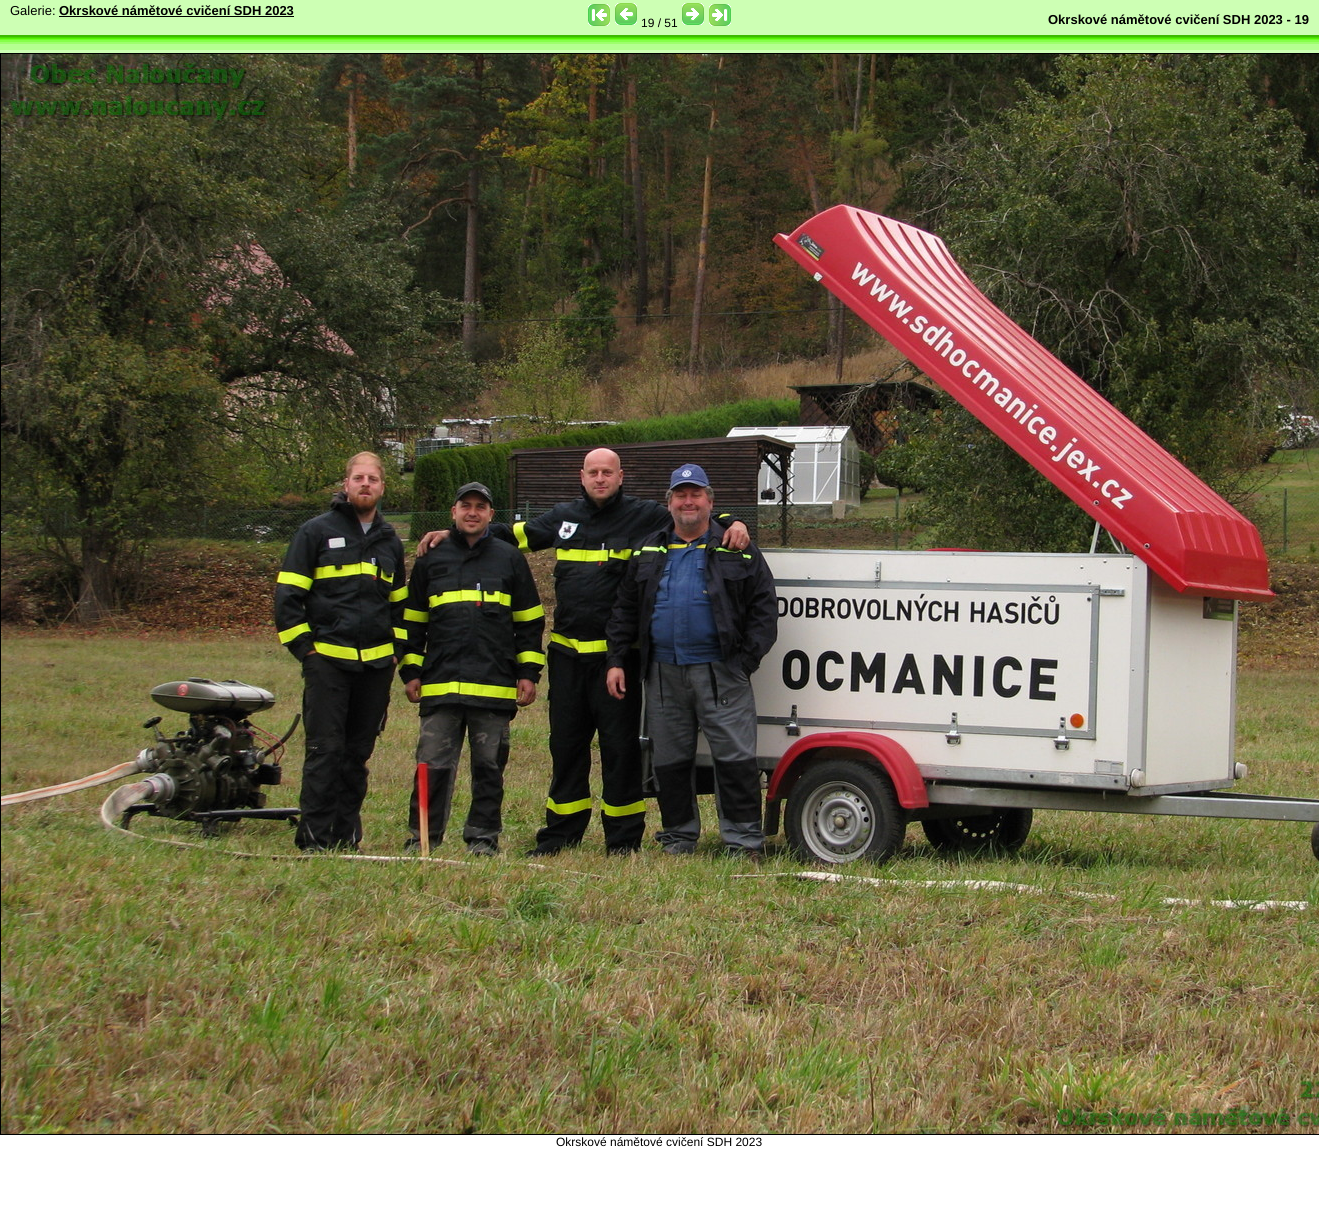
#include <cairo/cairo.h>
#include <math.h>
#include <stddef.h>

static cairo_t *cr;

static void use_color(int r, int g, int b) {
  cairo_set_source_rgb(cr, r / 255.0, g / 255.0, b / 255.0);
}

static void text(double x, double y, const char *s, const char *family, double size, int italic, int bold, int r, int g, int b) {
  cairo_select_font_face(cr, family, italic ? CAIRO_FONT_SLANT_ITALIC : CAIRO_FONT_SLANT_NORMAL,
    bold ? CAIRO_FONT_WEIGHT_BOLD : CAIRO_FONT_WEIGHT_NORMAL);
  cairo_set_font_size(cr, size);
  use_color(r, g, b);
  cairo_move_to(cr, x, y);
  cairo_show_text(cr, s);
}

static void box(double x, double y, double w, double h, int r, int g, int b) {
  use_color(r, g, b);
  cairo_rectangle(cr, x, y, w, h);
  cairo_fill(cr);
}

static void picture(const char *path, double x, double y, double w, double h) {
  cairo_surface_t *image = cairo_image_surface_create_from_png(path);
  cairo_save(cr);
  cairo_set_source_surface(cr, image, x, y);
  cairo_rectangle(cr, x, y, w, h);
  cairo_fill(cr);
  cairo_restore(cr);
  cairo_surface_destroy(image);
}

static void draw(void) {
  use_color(255, 255, 255);
  cairo_paint(cr);
  picture("img_01.png", 0, 0, 1319, 53);
  box(59, 16, 235, 1, 0, 0, 0);
  picture("img_02.png", 588, 4, 22, 22);
  picture("img_03.png", 615, 3, 22, 22);
  picture("img_04.png", 682, 3, 22, 22);
  picture("img_05.png", 709, 4, 22, 22);
  cairo_rectangle(cr, 0.5, 53.5, 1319, 1081);
  cairo_set_line_width(cr, 1);
  cairo_stroke(cr);
  picture("img_06.png", 1, 54, 1318, 1080);
  text(10, 15, "Galerie:", "Liberation Sans", 13, 0, 0, 0, 0, 0);
  text(59, 15, "Okrskové námětové cvičení SDH 2023", "Liberation Sans", 13, 0, 1, 0, 0, 0);
  text(641, 27, "19 / 51", "Liberation Sans", 12, 0, 0, 0, 0, 0);
  text(1048, 24, "Okrskové námětové cvičení SDH 2023 - 19", "Liberation Sans", 13, 0, 1, 0, 0, 0);
  text(556, 1146, "Okrskové námětové cvičení SDH 2023", "Liberation Sans", 12, 0, 0, 0, 0, 0);
}

int main(void) {
  cairo_surface_t *surface = cairo_image_surface_create(CAIRO_FORMAT_RGB24, 1319, 1208);
  cr = cairo_create(surface);
  cairo_font_options_t *options = cairo_font_options_create();
  cairo_font_options_set_hint_metrics(options, CAIRO_HINT_METRICS_OFF);
  cairo_font_options_set_hint_style(options, CAIRO_HINT_STYLE_NONE);
  cairo_set_font_options(cr, options);
  cairo_set_miter_limit(cr, 4);
  draw();
  cairo_surface_write_to_png(surface, "out.png");
  cairo_font_options_destroy(options);
  cairo_destroy(cr);
  cairo_surface_destroy(surface);
  return 0;
}
